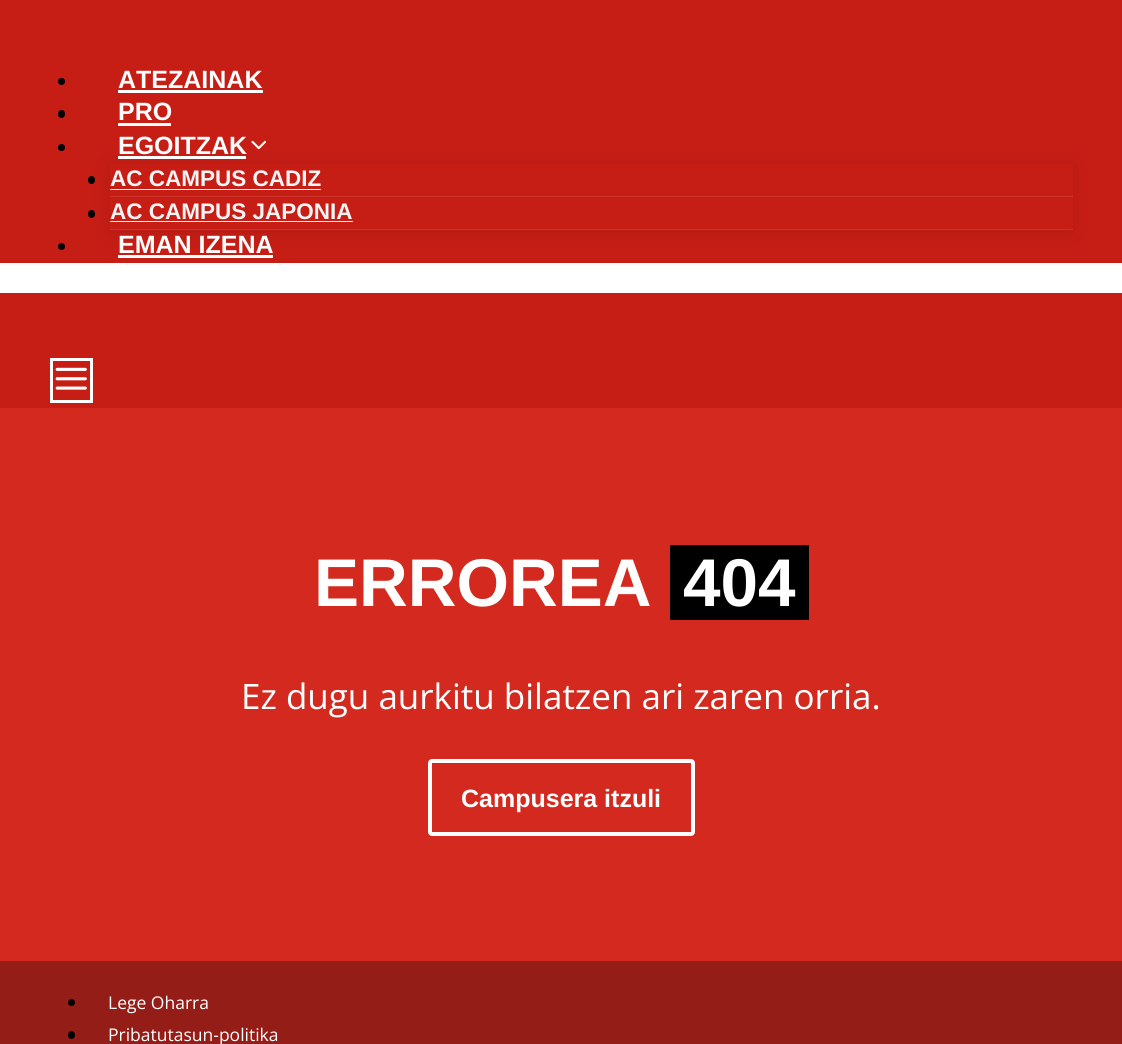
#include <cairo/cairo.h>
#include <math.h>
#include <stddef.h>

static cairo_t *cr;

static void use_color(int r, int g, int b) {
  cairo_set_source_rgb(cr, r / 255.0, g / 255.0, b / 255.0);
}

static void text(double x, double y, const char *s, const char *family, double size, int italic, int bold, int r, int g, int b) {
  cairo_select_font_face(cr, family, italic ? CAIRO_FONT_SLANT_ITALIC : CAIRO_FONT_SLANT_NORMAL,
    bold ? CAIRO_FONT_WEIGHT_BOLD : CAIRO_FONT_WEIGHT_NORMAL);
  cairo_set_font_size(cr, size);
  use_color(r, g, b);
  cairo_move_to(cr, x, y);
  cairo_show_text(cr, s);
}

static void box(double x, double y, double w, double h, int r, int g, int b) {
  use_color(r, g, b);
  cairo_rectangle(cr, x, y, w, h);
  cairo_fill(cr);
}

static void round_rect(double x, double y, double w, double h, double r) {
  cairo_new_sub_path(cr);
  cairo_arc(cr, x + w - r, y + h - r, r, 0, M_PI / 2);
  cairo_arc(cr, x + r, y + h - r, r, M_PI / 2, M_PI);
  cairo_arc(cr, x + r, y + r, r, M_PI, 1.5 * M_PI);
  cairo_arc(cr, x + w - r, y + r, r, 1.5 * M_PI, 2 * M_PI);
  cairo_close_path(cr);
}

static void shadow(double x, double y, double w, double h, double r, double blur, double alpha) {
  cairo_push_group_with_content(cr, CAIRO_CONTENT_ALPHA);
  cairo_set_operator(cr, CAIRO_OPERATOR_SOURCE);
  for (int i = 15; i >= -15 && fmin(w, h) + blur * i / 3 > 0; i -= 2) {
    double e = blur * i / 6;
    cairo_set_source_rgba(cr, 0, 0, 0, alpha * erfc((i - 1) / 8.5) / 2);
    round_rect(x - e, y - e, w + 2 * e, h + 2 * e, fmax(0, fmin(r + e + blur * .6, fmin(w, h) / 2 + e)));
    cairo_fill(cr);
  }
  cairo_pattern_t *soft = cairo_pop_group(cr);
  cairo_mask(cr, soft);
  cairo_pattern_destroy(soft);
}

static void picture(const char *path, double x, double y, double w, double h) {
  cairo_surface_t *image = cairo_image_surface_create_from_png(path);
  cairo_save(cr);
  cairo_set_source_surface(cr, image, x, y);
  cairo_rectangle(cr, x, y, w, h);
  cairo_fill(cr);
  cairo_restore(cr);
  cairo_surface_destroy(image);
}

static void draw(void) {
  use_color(255, 255, 255);
  cairo_paint(cr);
  box(0, 0, 1122, 263, 198, 29, 21);
  use_color(0, 0, 0);
  cairo_arc(cr, 61.5, 81.5, 3.5, 0, 2 * M_PI);
  cairo_fill(cr);
  box(118, 90, 145, 3, 255, 255, 255);
  use_color(0, 0, 0);
  round_rect(58, 110, 7, 8, 3.5);
  cairo_fill(cr);
  box(118, 123, 53, 3, 255, 255, 255);
  use_color(0, 0, 0);
  cairo_arc(cr, 61.5, 147.5, 3.5, 0, 2 * M_PI);
  cairo_fill(cr);
  use_color(0, 0, 0);
  shadow(110, 166, 963, 67, 0, 8, 0.1);
  box(118, 156, 128, 3, 255, 255, 255);
  picture("img_01.png", 251, 140, 15, 10);
  box(110, 164, 963, 65, 198, 29, 21);
  box(110, 196, 963, 1, 204, 52, 44);
  use_color(0, 0, 0);
  round_rect(88, 176, 7, 8, 3.5);
  cairo_fill(cr);
  box(110, 189, 211, 1, 245, 245, 245);
  box(110, 229, 963, 1, 204, 52, 44);
  use_color(0, 0, 0);
  round_rect(88, 210, 7, 8, 3.5);
  cairo_fill(cr);
  box(110, 221, 243, 1, 245, 245, 245);
  use_color(0, 0, 0);
  cairo_arc(cr, 61.5, 246.5, 3.5, 0, 2 * M_PI);
  cairo_fill(cr);
  box(118, 255, 155, 3, 255, 255, 255);
  box(0, 293, 1122, 115, 198, 29, 21);
  cairo_rectangle(cr, 51.5, 359.5, 40, 42);
  use_color(255, 255, 255);
  cairo_set_line_width(cr, 3);
  cairo_stroke(cr);
  picture("img_02.png", 55, 367, 32, 23);
  box(0, 408, 1122, 553, 211, 41, 30);
  box(670, 545, 139, 75, 0, 0, 0);
  round_rect(430, 761, 263, 73, 2);
  use_color(255, 255, 255);
  cairo_set_line_width(cr, 4);
  cairo_stroke(cr);
  box(0, 961, 1122, 83, 148, 29, 23);
  use_color(0, 0, 0);
  cairo_arc(cr, 71.5, 1002.5, 3.5, 0, 2 * M_PI);
  cairo_fill(cr);
  round_rect(68, 1031, 7, 8, 3.5);
  cairo_fill(cr);
  text(118, 88, "ATEZAINAK", "Liberation Sans", 25, 0, 1, 255, 255, 255);
  text(118, 120, "PRO", "Liberation Sans", 25, 0, 1, 255, 255, 255);
  text(118, 154, "EGOITZAK", "Liberation Sans", 25, 0, 1, 255, 255, 255);
  text(110, 186, "AC CAMPUS CADIZ", "Liberation Sans", 22.5, 0, 1, 245, 245, 245);
  text(110, 219, "AC CAMPUS JAPONIA", "Liberation Sans", 22.5, 0, 1, 245, 245, 245);
  text(118, 253, "EMAN IZENA", "Liberation Sans", 25, 0, 1, 255, 255, 255);
  text(314, 606, "ERROREA", "Liberation Sans", 67.5, 0, 1, 255, 255, 255);
  text(683, 606, "404", "Liberation Sans", 67.5, 0, 1, 255, 255, 255);
  text(241, 709, "Ez dugu aurkitu bilatzen ari zaren orria.", "Open Sans", 35, 0, 0, 255, 255, 255);
  text(461, 807, "Campusera itzuli", "Liberation Sans", 25, 0, 1, 255, 255, 255);
  text(108, 1009, "Lege Oharra", "Open Sans", 17.5, 0, 0, 255, 255, 255);
  text(108, 1041, "Pribatutasun-politika", "Open Sans", 17.5, 0, 0, 255, 255, 255);
}

int main(void) {
  cairo_surface_t *surface = cairo_image_surface_create(CAIRO_FORMAT_RGB24, 1122, 1044);
  cr = cairo_create(surface);
  cairo_font_options_t *options = cairo_font_options_create();
  cairo_font_options_set_hint_metrics(options, CAIRO_HINT_METRICS_OFF);
  cairo_font_options_set_hint_style(options, CAIRO_HINT_STYLE_NONE);
  cairo_set_font_options(cr, options);
  cairo_set_miter_limit(cr, 4);
  draw();
  cairo_surface_write_to_png(surface, "out.png");
  cairo_font_options_destroy(options);
  cairo_destroy(cr);
  cairo_surface_destroy(surface);
  return 0;
}
